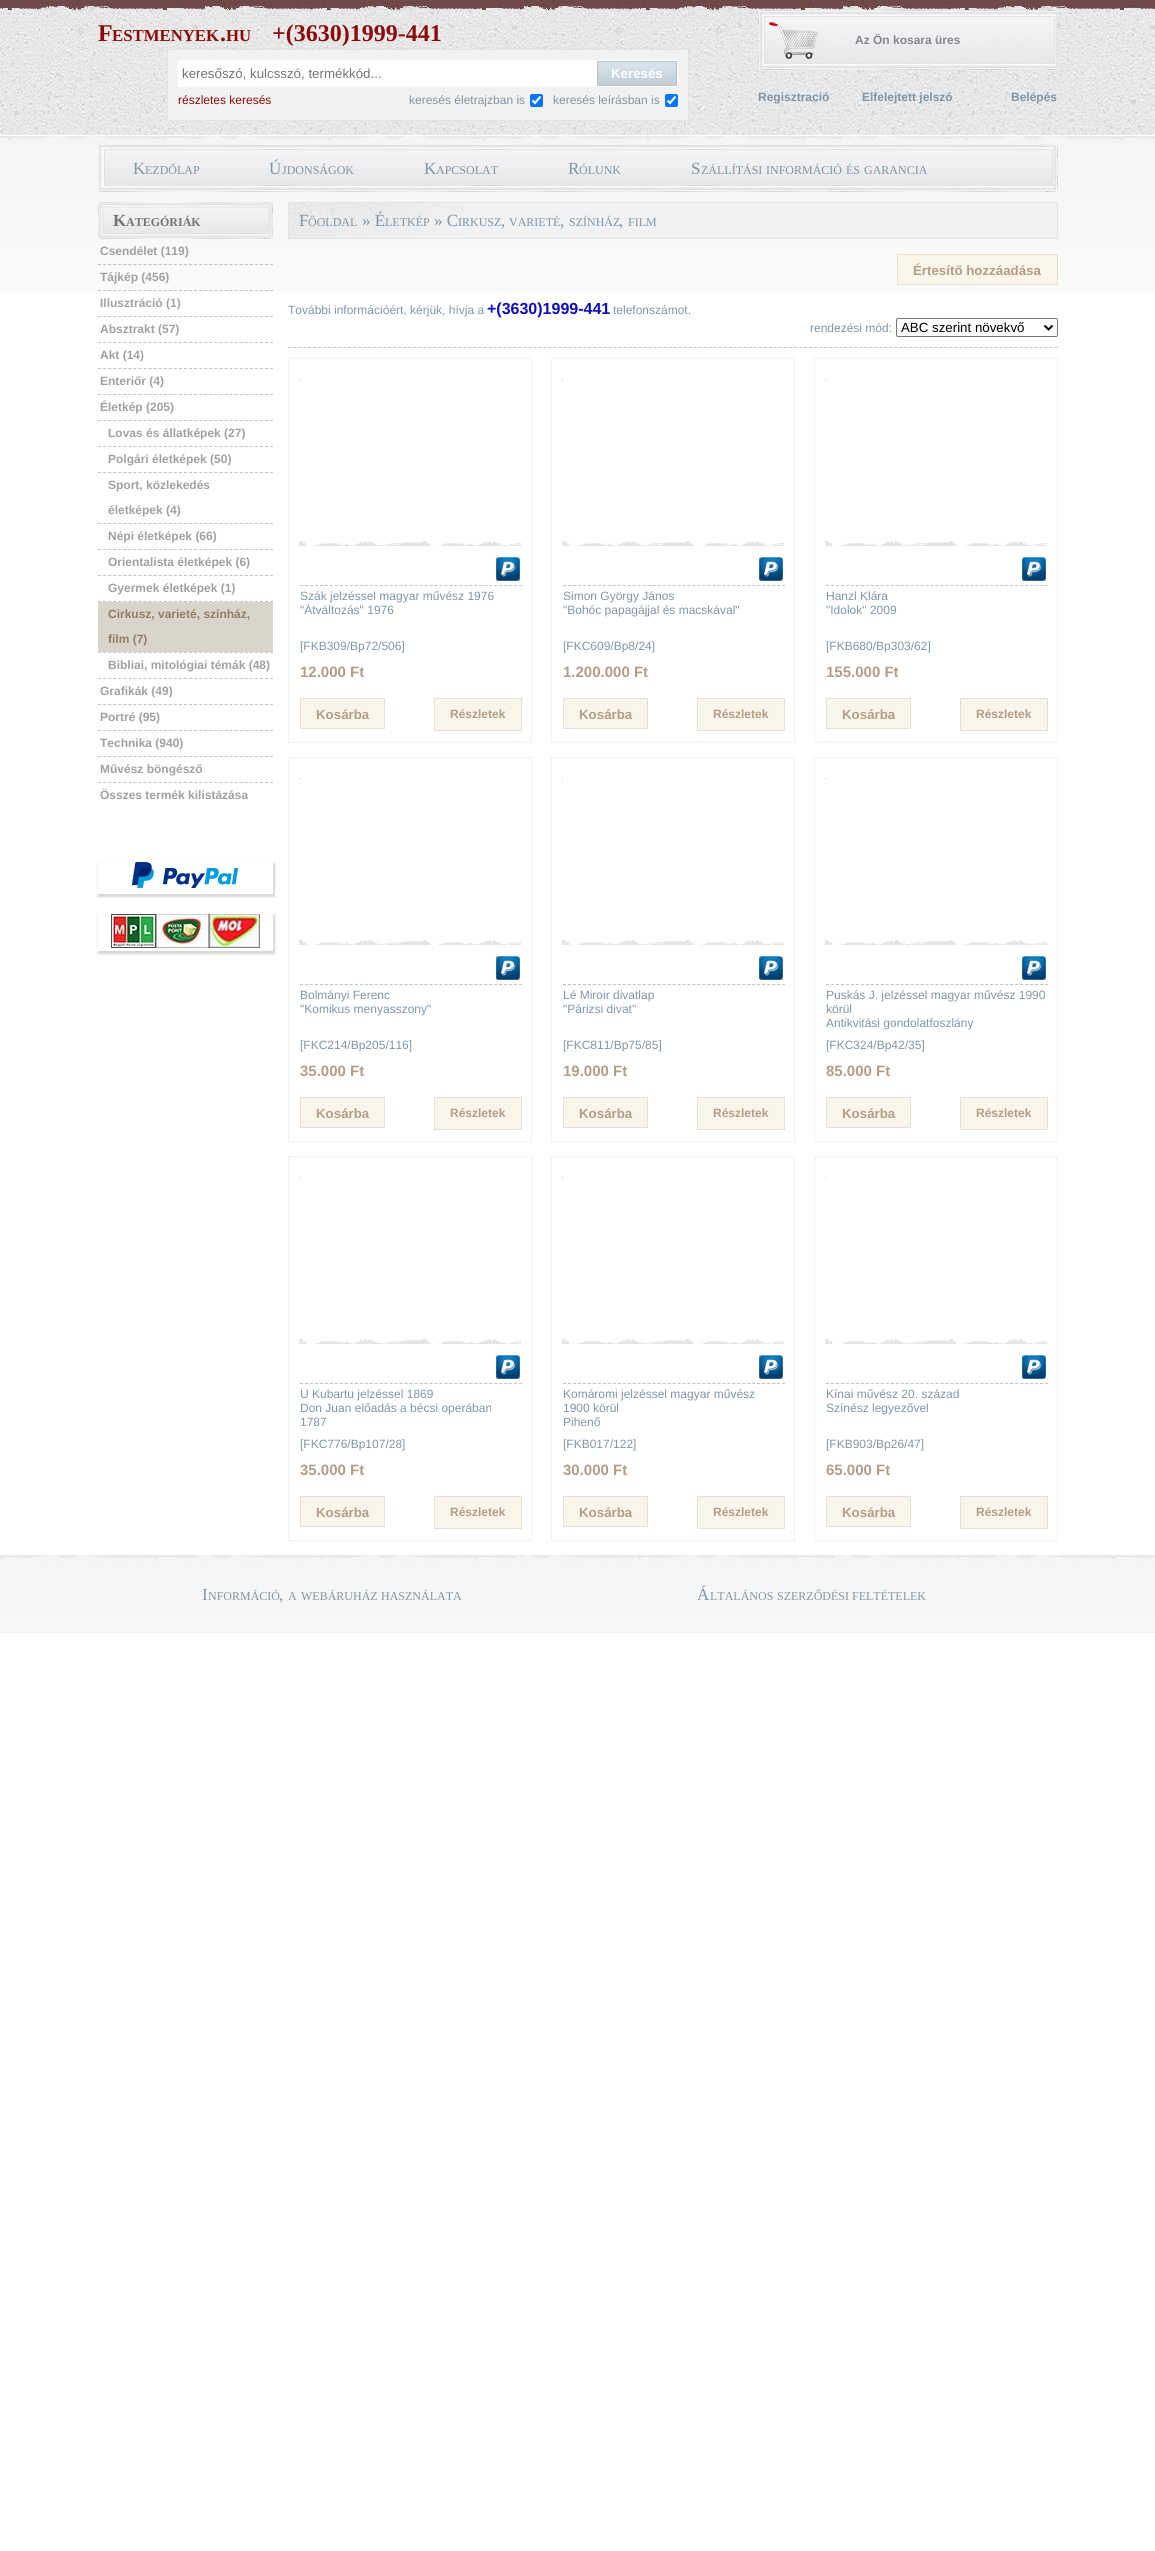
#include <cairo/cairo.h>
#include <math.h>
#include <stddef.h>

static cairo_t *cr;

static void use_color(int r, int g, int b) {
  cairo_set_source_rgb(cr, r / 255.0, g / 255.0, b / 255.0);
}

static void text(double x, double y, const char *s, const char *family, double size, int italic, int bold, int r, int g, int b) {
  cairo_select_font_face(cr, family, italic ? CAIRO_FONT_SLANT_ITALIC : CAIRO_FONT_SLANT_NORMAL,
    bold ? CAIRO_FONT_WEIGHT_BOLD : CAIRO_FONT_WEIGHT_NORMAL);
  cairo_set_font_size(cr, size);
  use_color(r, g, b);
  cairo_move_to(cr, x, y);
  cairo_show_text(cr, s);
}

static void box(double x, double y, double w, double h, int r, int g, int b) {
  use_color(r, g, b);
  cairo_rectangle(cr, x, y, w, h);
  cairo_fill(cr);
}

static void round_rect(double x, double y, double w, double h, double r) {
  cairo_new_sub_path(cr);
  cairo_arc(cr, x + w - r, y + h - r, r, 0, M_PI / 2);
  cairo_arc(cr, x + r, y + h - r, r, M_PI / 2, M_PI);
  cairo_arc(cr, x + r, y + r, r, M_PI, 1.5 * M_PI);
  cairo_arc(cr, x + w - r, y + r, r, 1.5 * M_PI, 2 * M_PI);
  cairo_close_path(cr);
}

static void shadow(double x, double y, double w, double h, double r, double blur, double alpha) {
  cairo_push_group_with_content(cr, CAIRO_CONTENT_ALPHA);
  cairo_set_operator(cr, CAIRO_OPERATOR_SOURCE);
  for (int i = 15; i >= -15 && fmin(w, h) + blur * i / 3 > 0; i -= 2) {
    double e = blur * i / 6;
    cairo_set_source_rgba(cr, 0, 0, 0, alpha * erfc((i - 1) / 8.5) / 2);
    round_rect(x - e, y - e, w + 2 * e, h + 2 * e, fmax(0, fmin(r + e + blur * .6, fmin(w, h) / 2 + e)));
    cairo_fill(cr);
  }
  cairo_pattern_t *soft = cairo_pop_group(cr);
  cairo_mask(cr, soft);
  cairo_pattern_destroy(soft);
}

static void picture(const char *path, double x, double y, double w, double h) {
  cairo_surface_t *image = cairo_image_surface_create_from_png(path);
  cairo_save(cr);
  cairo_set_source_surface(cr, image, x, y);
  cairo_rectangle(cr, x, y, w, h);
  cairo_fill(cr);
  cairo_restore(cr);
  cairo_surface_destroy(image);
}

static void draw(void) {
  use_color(255, 255, 255);
  cairo_paint(cr);
  picture("img_01.png", 0, 0, 1155, 292);
  use_color(242, 242, 242);
  cairo_rectangle(cr, 167.5, 49.5, 521, 71);
  cairo_fill_preserve(cr);
  use_color(227, 227, 227);
  cairo_set_line_width(cr, 1);
  cairo_stroke(cr);
  box(178, 60, 500, 27, 255, 255, 255);
  picture("img_02.png", 598, 62, 78, 23);
  cairo_rectangle(cr, 597.5, 61.5, 79, 24);
  use_color(189, 194, 201);
  cairo_stroke(cr);
  use_color(0, 117, 255);
  round_rect(530, 94, 13, 13, 2);
  cairo_fill(cr);
  cairo_new_path(cr);
  cairo_move_to(cr, 532.5, 100.5);
  cairo_line_to(cr, 535, 103);
  cairo_line_to(cr, 540.5, 96.5);
  use_color(255, 255, 255);
  cairo_set_line_width(cr, 2.1);
  cairo_stroke(cr);
  use_color(0, 117, 255);
  round_rect(665, 94, 13, 13, 2);
  cairo_fill(cr);
  cairo_new_path(cr);
  cairo_move_to(cr, 667.5, 100.5);
  cairo_line_to(cr, 670, 103);
  cairo_line_to(cr, 675.5, 96.5);
  use_color(255, 255, 255);
  cairo_stroke(cr);
  picture("img_03.png", 758, 10, 300, 60);
  picture("img_04.png", 769, 22, 49, 37);
  picture("img_05.png", 98, 144, 960, 48);
  picture("img_06.png", 98, 202, 175, 37);
  cairo_new_path(cr);
  cairo_move_to(cr, 98, 264.5);
  cairo_line_to(cr, 273, 264.5);
  use_color(194, 194, 194);
  cairo_set_line_width(cr, 1);
  cairo_set_dash(cr, (double[]){3, 2.06}, 2, 0);
  cairo_stroke(cr);
  cairo_new_path(cr);
  cairo_move_to(cr, 98, 290.5);
  cairo_line_to(cr, 273, 290.5);
  cairo_stroke(cr);
  cairo_new_path(cr);
  cairo_move_to(cr, 98, 316.5);
  cairo_line_to(cr, 273, 316.5);
  cairo_stroke(cr);
  cairo_new_path(cr);
  cairo_move_to(cr, 98, 342.5);
  cairo_line_to(cr, 273, 342.5);
  cairo_stroke(cr);
  cairo_new_path(cr);
  cairo_move_to(cr, 98, 368.5);
  cairo_line_to(cr, 273, 368.5);
  cairo_stroke(cr);
  cairo_new_path(cr);
  cairo_move_to(cr, 98, 394.5);
  cairo_line_to(cr, 273, 394.5);
  cairo_stroke(cr);
  cairo_new_path(cr);
  cairo_move_to(cr, 98, 420.5);
  cairo_line_to(cr, 273, 420.5);
  cairo_stroke(cr);
  cairo_new_path(cr);
  cairo_move_to(cr, 98, 446.5);
  cairo_line_to(cr, 273, 446.5);
  cairo_stroke(cr);
  cairo_new_path(cr);
  cairo_move_to(cr, 98, 472.5);
  cairo_line_to(cr, 273, 472.5);
  cairo_stroke(cr);
  cairo_new_path(cr);
  cairo_move_to(cr, 98, 523.5);
  cairo_line_to(cr, 273, 523.5);
  cairo_stroke(cr);
  cairo_new_path(cr);
  cairo_move_to(cr, 98, 549.5);
  cairo_line_to(cr, 273, 549.5);
  cairo_stroke(cr);
  cairo_new_path(cr);
  cairo_move_to(cr, 98, 575.5);
  cairo_line_to(cr, 273, 575.5);
  cairo_stroke(cr);
  cairo_new_path(cr);
  cairo_move_to(cr, 98, 601.5);
  cairo_line_to(cr, 273, 601.5);
  cairo_stroke(cr);
  box(98, 602, 175, 50, 218, 213, 203);
  cairo_new_path(cr);
  cairo_move_to(cr, 98, 652.5);
  cairo_line_to(cr, 273, 652.5);
  use_color(194, 194, 194);
  cairo_stroke(cr);
  cairo_new_path(cr);
  cairo_move_to(cr, 98, 678.5);
  cairo_line_to(cr, 273, 678.5);
  cairo_stroke(cr);
  cairo_new_path(cr);
  cairo_move_to(cr, 98, 704.5);
  cairo_line_to(cr, 273, 704.5);
  cairo_stroke(cr);
  cairo_new_path(cr);
  cairo_move_to(cr, 98, 730.5);
  cairo_line_to(cr, 273, 730.5);
  cairo_stroke(cr);
  cairo_new_path(cr);
  cairo_move_to(cr, 98, 756.5);
  cairo_line_to(cr, 273, 756.5);
  cairo_stroke(cr);
  cairo_new_path(cr);
  cairo_move_to(cr, 98, 782.5);
  cairo_line_to(cr, 273, 782.5);
  cairo_stroke(cr);
  cairo_save(cr);
  cairo_set_fill_rule(cr, CAIRO_FILL_RULE_EVEN_ODD);
  cairo_new_path(cr);
  cairo_move_to(cr, 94, 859);
  cairo_line_to(cr, 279, 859);
  cairo_line_to(cr, 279, 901);
  cairo_line_to(cr, 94, 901);
  cairo_close_path(cr);
  cairo_move_to(cr, 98, 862);
  cairo_line_to(cr, 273, 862);
  cairo_line_to(cr, 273, 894);
  cairo_line_to(cr, 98, 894);
  cairo_close_path(cr);
  cairo_clip(cr);
  use_color(175, 175, 175);
  shadow(98, 863, 177, 34, 0, 1, 0.5);
  cairo_restore(cr);
  picture("img_07.png", 132, 862, 106, 26);
  cairo_save(cr);
  cairo_set_fill_rule(cr, CAIRO_FILL_RULE_EVEN_ODD);
  cairo_new_path(cr);
  cairo_move_to(cr, 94, 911);
  cairo_line_to(cr, 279, 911);
  cairo_line_to(cr, 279, 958);
  cairo_line_to(cr, 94, 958);
  cairo_close_path(cr);
  cairo_move_to(cr, 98, 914);
  cairo_line_to(cr, 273, 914);
  cairo_line_to(cr, 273, 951);
  cairo_line_to(cr, 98, 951);
  cairo_close_path(cr);
  cairo_clip(cr);
  use_color(175, 175, 175);
  shadow(98, 915, 177, 39, 0, 1, 0.5);
  cairo_restore(cr);
  picture("img_08.png", 111, 914, 45, 34);
  picture("img_09.png", 156, 914, 53, 34);
  picture("img_10.png", 209, 914, 51, 34);
  box(289, 203, 768, 35, 242, 242, 242);
  picture("img_11.png", 289, 203, 175, 35);
  cairo_rectangle(cr, 288.5, 202.5, 769, 36);
  use_color(227, 227, 227);
  cairo_set_dash(cr, NULL, 0, 0);
  cairo_stroke(cr);
  use_color(250, 245, 235);
  cairo_rectangle(cr, 897.5, 254.5, 160, 30);
  cairo_fill_preserve(cr);
  use_color(233, 224, 212);
  cairo_stroke(cr);
  cairo_new_path(cr);
  cairo_move_to(cr, 288, 347.5);
  cairo_line_to(cr, 1058, 347.5);
  use_color(194, 194, 194);
  cairo_set_dash(cr, (double[]){3, 2.01}, 2, 0);
  cairo_stroke(cr);
  round_rect(896.5, 318.5, 161, 18, 1.5);
  use_color(118, 118, 118);
  cairo_set_dash(cr, NULL, 0, 0);
  cairo_stroke(cr);
  cairo_new_path(cr);
  cairo_move_to(cr, 1044.5, 325.5);
  cairo_line_to(cr, 1048.5, 329.5);
  cairo_line_to(cr, 1052.5, 325.5);
  use_color(0, 0, 0);
  cairo_set_line_width(cr, 2);
  cairo_stroke(cr);
  cairo_rectangle(cr, 288.5, 358.5, 243, 384);
  use_color(242, 242, 242);
  cairo_set_line_width(cr, 1);
  cairo_stroke(cr);
  picture("img_12.png", 299, 541, 222, 5);
  box(299, 379, 1, 1, 195, 195, 195);
  cairo_new_path(cr);
  cairo_move_to(cr, 300, 585.5);
  cairo_line_to(cr, 522, 585.5);
  use_color(194, 194, 194);
  cairo_set_dash(cr, (double[]){3, 1.98}, 2, 0);
  cairo_stroke(cr);
  picture("img_13.png", 496, 557, 24, 24);
  use_color(250, 245, 235);
  cairo_rectangle(cr, 300.5, 698.5, 84, 30);
  cairo_fill_preserve(cr);
  use_color(233, 224, 212);
  cairo_set_dash(cr, NULL, 0, 0);
  cairo_stroke(cr);
  use_color(250, 245, 235);
  cairo_rectangle(cr, 434.5, 698.5, 87, 32);
  cairo_fill_preserve(cr);
  use_color(233, 224, 212);
  cairo_stroke(cr);
  cairo_rectangle(cr, 551.5, 358.5, 243, 384);
  use_color(242, 242, 242);
  cairo_stroke(cr);
  picture("img_12.png", 562, 541, 222, 5);
  box(562, 379, 1, 1, 195, 195, 195);
  cairo_new_path(cr);
  cairo_move_to(cr, 563, 585.5);
  cairo_line_to(cr, 785, 585.5);
  use_color(194, 194, 194);
  cairo_set_dash(cr, (double[]){3, 1.98}, 2, 0);
  cairo_stroke(cr);
  picture("img_13.png", 759, 557, 24, 24);
  use_color(250, 245, 235);
  cairo_rectangle(cr, 563.5, 698.5, 84, 30);
  cairo_fill_preserve(cr);
  use_color(233, 224, 212);
  cairo_set_dash(cr, NULL, 0, 0);
  cairo_stroke(cr);
  use_color(250, 245, 235);
  cairo_rectangle(cr, 697.5, 698.5, 87, 32);
  cairo_fill_preserve(cr);
  use_color(233, 224, 212);
  cairo_stroke(cr);
  cairo_rectangle(cr, 814.5, 358.5, 243, 384);
  use_color(242, 242, 242);
  cairo_stroke(cr);
  picture("img_12.png", 825, 541, 222, 5);
  box(825, 379, 1, 1, 195, 195, 195);
  cairo_new_path(cr);
  cairo_move_to(cr, 826, 585.5);
  cairo_line_to(cr, 1048, 585.5);
  use_color(194, 194, 194);
  cairo_set_dash(cr, (double[]){3, 1.98}, 2, 0);
  cairo_stroke(cr);
  picture("img_13.png", 1022, 557, 24, 24);
  use_color(250, 245, 235);
  cairo_rectangle(cr, 826.5, 698.5, 84, 30);
  cairo_fill_preserve(cr);
  use_color(233, 224, 212);
  cairo_set_dash(cr, NULL, 0, 0);
  cairo_stroke(cr);
  use_color(250, 245, 235);
  cairo_rectangle(cr, 960.5, 698.5, 87, 32);
  cairo_fill_preserve(cr);
  use_color(233, 224, 212);
  cairo_stroke(cr);
  cairo_rectangle(cr, 288.5, 757.5, 243, 384);
  use_color(242, 242, 242);
  cairo_stroke(cr);
  picture("img_12.png", 299, 940, 222, 5);
  box(299, 778, 1, 1, 195, 195, 195);
  cairo_new_path(cr);
  cairo_move_to(cr, 300, 984.5);
  cairo_line_to(cr, 522, 984.5);
  use_color(194, 194, 194);
  cairo_set_dash(cr, (double[]){3, 1.98}, 2, 0);
  cairo_stroke(cr);
  picture("img_13.png", 496, 956, 24, 24);
  use_color(250, 245, 235);
  cairo_rectangle(cr, 300.5, 1097.5, 84, 30);
  cairo_fill_preserve(cr);
  use_color(233, 224, 212);
  cairo_set_dash(cr, NULL, 0, 0);
  cairo_stroke(cr);
  use_color(250, 245, 235);
  cairo_rectangle(cr, 434.5, 1097.5, 87, 32);
  cairo_fill_preserve(cr);
  use_color(233, 224, 212);
  cairo_stroke(cr);
  cairo_rectangle(cr, 551.5, 757.5, 243, 384);
  use_color(242, 242, 242);
  cairo_stroke(cr);
  picture("img_12.png", 562, 940, 222, 5);
  box(562, 778, 1, 1, 195, 195, 195);
  cairo_new_path(cr);
  cairo_move_to(cr, 563, 984.5);
  cairo_line_to(cr, 785, 984.5);
  use_color(194, 194, 194);
  cairo_set_dash(cr, (double[]){3, 1.98}, 2, 0);
  cairo_stroke(cr);
  picture("img_13.png", 759, 956, 24, 24);
  use_color(250, 245, 235);
  cairo_rectangle(cr, 563.5, 1097.5, 84, 30);
  cairo_fill_preserve(cr);
  use_color(233, 224, 212);
  cairo_set_dash(cr, NULL, 0, 0);
  cairo_stroke(cr);
  use_color(250, 245, 235);
  cairo_rectangle(cr, 697.5, 1097.5, 87, 32);
  cairo_fill_preserve(cr);
  use_color(233, 224, 212);
  cairo_stroke(cr);
  cairo_rectangle(cr, 814.5, 757.5, 243, 384);
  use_color(242, 242, 242);
  cairo_stroke(cr);
  picture("img_12.png", 825, 940, 222, 5);
  box(825, 778, 1, 1, 195, 195, 195);
  cairo_new_path(cr);
  cairo_move_to(cr, 826, 984.5);
  cairo_line_to(cr, 1048, 984.5);
  use_color(194, 194, 194);
  cairo_set_dash(cr, (double[]){3, 1.98}, 2, 0);
  cairo_stroke(cr);
  picture("img_13.png", 1022, 956, 24, 24);
  use_color(250, 245, 235);
  cairo_rectangle(cr, 826.5, 1097.5, 84, 30);
  cairo_fill_preserve(cr);
  use_color(233, 224, 212);
  cairo_set_dash(cr, NULL, 0, 0);
  cairo_stroke(cr);
  use_color(250, 245, 235);
  cairo_rectangle(cr, 960.5, 1097.5, 87, 32);
  cairo_fill_preserve(cr);
  use_color(233, 224, 212);
  cairo_stroke(cr);
  cairo_rectangle(cr, 288.5, 1156.5, 243, 384);
  use_color(242, 242, 242);
  cairo_stroke(cr);
  picture("img_12.png", 299, 1339, 222, 5);
  box(299, 1177, 1, 1, 195, 195, 195);
  cairo_new_path(cr);
  cairo_move_to(cr, 300, 1383.5);
  cairo_line_to(cr, 522, 1383.5);
  use_color(194, 194, 194);
  cairo_set_dash(cr, (double[]){3, 1.98}, 2, 0);
  cairo_stroke(cr);
  picture("img_13.png", 496, 1355, 24, 24);
  use_color(250, 245, 235);
  cairo_rectangle(cr, 300.5, 1496.5, 84, 30);
  cairo_fill_preserve(cr);
  use_color(233, 224, 212);
  cairo_set_dash(cr, NULL, 0, 0);
  cairo_stroke(cr);
  use_color(250, 245, 235);
  cairo_rectangle(cr, 434.5, 1496.5, 87, 32);
  cairo_fill_preserve(cr);
  use_color(233, 224, 212);
  cairo_stroke(cr);
  cairo_rectangle(cr, 551.5, 1156.5, 243, 384);
  use_color(242, 242, 242);
  cairo_stroke(cr);
  picture("img_12.png", 562, 1339, 222, 5);
  box(562, 1177, 1, 1, 195, 195, 195);
  cairo_new_path(cr);
  cairo_move_to(cr, 563, 1383.5);
  cairo_line_to(cr, 785, 1383.5);
  use_color(194, 194, 194);
  cairo_set_dash(cr, (double[]){3, 1.98}, 2, 0);
  cairo_stroke(cr);
  picture("img_13.png", 759, 1355, 24, 24);
  use_color(250, 245, 235);
  cairo_rectangle(cr, 563.5, 1496.5, 84, 30);
  cairo_fill_preserve(cr);
  use_color(233, 224, 212);
  cairo_set_dash(cr, NULL, 0, 0);
  cairo_stroke(cr);
  use_color(250, 245, 235);
  cairo_rectangle(cr, 697.5, 1496.5, 87, 32);
  cairo_fill_preserve(cr);
  use_color(233, 224, 212);
  cairo_stroke(cr);
  cairo_rectangle(cr, 814.5, 1156.5, 243, 384);
  use_color(242, 242, 242);
  cairo_stroke(cr);
  picture("img_12.png", 825, 1339, 222, 5);
  box(825, 1177, 1, 1, 195, 195, 195);
  cairo_new_path(cr);
  cairo_move_to(cr, 826, 1383.5);
  cairo_line_to(cr, 1048, 1383.5);
  use_color(194, 194, 194);
  cairo_set_dash(cr, (double[]){3, 1.98}, 2, 0);
  cairo_stroke(cr);
  picture("img_13.png", 1022, 1355, 24, 24);
  use_color(250, 245, 235);
  cairo_rectangle(cr, 826.5, 1496.5, 84, 30);
  cairo_fill_preserve(cr);
  use_color(233, 224, 212);
  cairo_set_dash(cr, NULL, 0, 0);
  cairo_stroke(cr);
  use_color(250, 245, 235);
  cairo_rectangle(cr, 960.5, 1496.5, 87, 32);
  cairo_fill_preserve(cr);
  use_color(233, 224, 212);
  cairo_stroke(cr);
  picture("img_14.png", 0, 1555, 1155, 79);
  text(98, 41, "F", "Liberation Serif", 24, 0, 1, 138, 11, 10);
  text(112, 41, "ESTMENYEK", "Liberation Serif", 16.75, 0, 1, 138, 11, 10);
  text(220, 41, ".", "Liberation Serif", 24, 0, 1, 138, 11, 10);
  text(226, 41, "HU", "Liberation Serif", 16.75, 0, 1, 138, 11, 10);
  text(272, 41, "+(3630)1999-441", "Liberation Serif", 24, 0, 1, 138, 11, 10);
  text(182, 78, "keresőszó, kulcsszó, termékkód...", "Liberation Sans", 13.3, 0, 0, 117, 117, 117);
  text(611, 78, "Keresés", "Liberation Sans", 13.3, 0, 1, 255, 255, 255);
  text(178, 104, "részletes keresés", "Liberation Sans", 12, 0, 0, 138, 11, 10);
  text(409, 104, "keresés életrajzban is", "Liberation Sans", 12, 0, 0, 127, 150, 169);
  text(553, 104, "keresés leírásban is", "Liberation Sans", 12, 0, 0, 127, 150, 169);
  text(855, 44, "Az Ön kosara üres", "Liberation Sans", 12, 0, 1, 136, 134, 143);
  text(758, 101, "Regisztració", "Liberation Sans", 12, 0, 1, 127, 150, 169);
  text(862, 101, "Elfelejtett jelszó", "Liberation Sans", 12, 0, 1, 127, 150, 169);
  text(1011, 101, "Belépés", "Liberation Sans", 12, 0, 1, 127, 150, 169);
  text(133, 174, "K", "Liberation Serif", 17, 0, 0, 127, 150, 169);
  text(145, 174, "EZDŐLAP", "Liberation Serif", 12, 0, 0, 127, 150, 169);
  text(269, 174, "Ú", "Liberation Serif", 17, 0, 0, 127, 150, 169);
  text(282, 174, "JDONSÁGOK", "Liberation Serif", 12, 0, 0, 127, 150, 169);
  text(424, 174, "K", "Liberation Serif", 17, 0, 0, 127, 150, 169);
  text(436, 174, "APCSOLAT", "Liberation Serif", 12, 0, 0, 127, 150, 169);
  text(568, 174, "R", "Liberation Serif", 17, 0, 0, 127, 150, 169);
  text(579, 174, "ÓLUNK", "Liberation Serif", 12, 0, 0, 127, 150, 169);
  text(691, 174, "S", "Liberation Serif", 17, 0, 0, 127, 150, 169);
  text(701, 174, "ZÁLLÍTÁSI", "Liberation Serif", 12, 0, 0, 127, 150, 169);
  text(766, 174, "INFORMÁCIÓ", "Liberation Serif", 12, 0, 0, 127, 150, 169);
  text(846, 174, "ÉS", "Liberation Serif", 12, 0, 0, 127, 150, 169);
  text(864, 174, "GARANCIA", "Liberation Serif", 12, 0, 0, 127, 150, 169);
  text(113, 226, "K", "Liberation Serif", 17, 0, 1, 117, 117, 117);
  text(126, 226, "ATEGÓRIÁK", "Liberation Serif", 12, 0, 1, 117, 117, 117);
  text(100, 255, "Csendélet (119)", "Liberation Sans", 12, 0, 1, 159, 161, 164);
  text(100, 281, "Tájkép (456)", "Liberation Sans", 12, 0, 1, 159, 161, 164);
  text(100, 307, "Illusztráció (1)", "Liberation Sans", 12, 0, 1, 159, 161, 164);
  text(100, 333, "Absztrakt (57)", "Liberation Sans", 12, 0, 1, 159, 161, 164);
  text(100, 359, "Akt (14)", "Liberation Sans", 12, 0, 1, 159, 161, 164);
  text(100, 385, "Enteriőr (4)", "Liberation Sans", 12, 0, 1, 159, 161, 164);
  text(100, 411, "Életkép (205)", "Liberation Sans", 12, 0, 1, 159, 161, 164);
  text(108, 437, "Lovas és állatképek (27)", "Liberation Sans", 12, 0, 1, 159, 161, 164);
  text(108, 463, "Polgári életképek (50)", "Liberation Sans", 12, 0, 1, 159, 161, 164);
  text(108, 489, "Sport, közlekedés", "Liberation Sans", 12, 0, 1, 159, 161, 164);
  text(108, 514, "életképek (4)", "Liberation Sans", 12, 0, 1, 159, 161, 164);
  text(108, 540, "Népi életképek (66)", "Liberation Sans", 12, 0, 1, 159, 161, 164);
  text(108, 566, "Orientalista életképek (6)", "Liberation Sans", 12, 0, 1, 159, 161, 164);
  text(108, 592, "Gyermek életképek (1)", "Liberation Sans", 12, 0, 1, 159, 161, 164);
  text(108, 618, "Cirkusz, varieté, színház,", "Liberation Sans", 12, 0, 1, 148, 125, 103);
  text(108, 643, "film (7)", "Liberation Sans", 12, 0, 1, 148, 125, 103);
  text(108, 669, "Bibliai, mitológiai témák (48)", "Liberation Sans", 12, 0, 1, 159, 161, 164);
  text(100, 695, "Grafikák (49)", "Liberation Sans", 12, 0, 1, 159, 161, 164);
  text(100, 721, "Portré (95)", "Liberation Sans", 12, 0, 1, 159, 161, 164);
  text(100, 747, "Technika (940)", "Liberation Sans", 12, 0, 1, 159, 161, 164);
  text(100, 773, "Művész böngésző", "Liberation Sans", 12, 0, 1, 159, 161, 164);
  text(100, 799, "Összes termék kilistázása", "Liberation Sans", 12, 0, 1, 159, 161, 164);
  text(299, 226, "F", "Liberation Serif", 17, 0, 0, 127, 150, 169);
  text(308, 226, "ŐOLDAL", "Liberation Serif", 12, 0, 0, 127, 150, 169);
  text(362, 226, "» É", "Liberation Serif", 17, 0, 0, 127, 150, 169);
  text(385, 226, "LETKÉP", "Liberation Serif", 12, 0, 0, 127, 150, 169);
  text(434, 226, "» C", "Liberation Serif", 17, 0, 0, 127, 150, 169);
  text(458, 226, "IRKUSZ", "Liberation Serif", 12, 0, 0, 127, 150, 169);
  text(509, 226, "VARIETÉ", "Liberation Serif", 12, 0, 0, 127, 150, 169);
  text(569, 226, "SZÍNHÁZ", "Liberation Serif", 12, 0, 0, 127, 150, 169);
  text(628, 226, "FILM", "Liberation Serif", 12, 0, 0, 127, 150, 169);
  text(501, 226, ",", "Liberation Serif", 17, 0, 0, 127, 150, 169);
  text(560, 226, ",", "Liberation Serif", 17, 0, 0, 127, 150, 169);
  text(619, 226, ",", "Liberation Serif", 17, 0, 0, 127, 150, 169);
  text(913, 275, "Értesítő hozzáadása", "Liberation Sans", 13.3, 0, 1, 180, 157, 135);
  text(288, 314, "További információért, kérjük, hívja a", "Liberation Sans", 12, 0, 0, 127, 150, 169);
  text(487, 314, "+(3630)1999-441", "Liberation Sans", 16, 0, 1, 13, 13, 190);
  text(613, 314, "telefonszámot.", "Liberation Sans", 12, 0, 0, 127, 150, 169);
  text(810, 332, "rendezési mód:", "Liberation Sans", 12, 0, 0, 127, 150, 169);
  text(901, 332, "ABC szerint növekvő", "Liberation Sans", 13.3, 0, 0, 0, 0, 0);
  text(300, 600, "Szák jelzéssel magyar művész 1976", "Liberation Sans", 12, 0, 0, 127, 150, 169);
  text(300, 614, "\"Átváltozás\" 1976", "Liberation Sans", 12, 0, 0, 127, 150, 169);
  text(300, 650, "[FKB309/Bp72/506]", "Liberation Sans", 12, 0, 0, 127, 150, 169);
  text(300, 677, "12.000 Ft", "Liberation Sans", 15, 0, 1, 180, 157, 135);
  text(316, 719, "Kosárba", "Liberation Sans", 13.3, 0, 1, 180, 157, 135);
  text(450, 718, "Részletek", "Liberation Sans", 12, 0, 1, 180, 157, 135);
  text(563, 600, "Simon György János", "Liberation Sans", 12, 0, 0, 127, 150, 169);
  text(563, 614, "\"Bohóc papagájjal és macskával\"", "Liberation Sans", 12, 0, 0, 127, 150, 169);
  text(563, 650, "[FKC609/Bp8/24]", "Liberation Sans", 12, 0, 0, 127, 150, 169);
  text(563, 677, "1.200.000 Ft", "Liberation Sans", 15, 0, 1, 180, 157, 135);
  text(579, 719, "Kosárba", "Liberation Sans", 13.3, 0, 1, 180, 157, 135);
  text(713, 718, "Részletek", "Liberation Sans", 12, 0, 1, 180, 157, 135);
  text(826, 600, "Hanzl Klára", "Liberation Sans", 12, 0, 0, 127, 150, 169);
  text(826, 614, "\"Idolok\" 2009", "Liberation Sans", 12, 0, 0, 127, 150, 169);
  text(826, 650, "[FKB680/Bp303/62]", "Liberation Sans", 12, 0, 0, 127, 150, 169);
  text(826, 677, "155.000 Ft", "Liberation Sans", 15, 0, 1, 180, 157, 135);
  text(842, 719, "Kosárba", "Liberation Sans", 13.3, 0, 1, 180, 157, 135);
  text(976, 718, "Részletek", "Liberation Sans", 12, 0, 1, 180, 157, 135);
  text(300, 999, "Bolmányi Ferenc", "Liberation Sans", 12, 0, 0, 127, 150, 169);
  text(300, 1013, "\"Komikus menyasszony\"", "Liberation Sans", 12, 0, 0, 127, 150, 169);
  text(300, 1049, "[FKC214/Bp205/116]", "Liberation Sans", 12, 0, 0, 127, 150, 169);
  text(300, 1076, "35.000 Ft", "Liberation Sans", 15, 0, 1, 180, 157, 135);
  text(316, 1118, "Kosárba", "Liberation Sans", 13.3, 0, 1, 180, 157, 135);
  text(450, 1117, "Részletek", "Liberation Sans", 12, 0, 1, 180, 157, 135);
  text(563, 999, "Lé Miroir divatlap", "Liberation Sans", 12, 0, 0, 127, 150, 169);
  text(563, 1013, "\"Párizsi divat\"", "Liberation Sans", 12, 0, 0, 127, 150, 169);
  text(563, 1049, "[FKC811/Bp75/85]", "Liberation Sans", 12, 0, 0, 127, 150, 169);
  text(563, 1076, "19.000 Ft", "Liberation Sans", 15, 0, 1, 180, 157, 135);
  text(579, 1118, "Kosárba", "Liberation Sans", 13.3, 0, 1, 180, 157, 135);
  text(713, 1117, "Részletek", "Liberation Sans", 12, 0, 1, 180, 157, 135);
  text(826, 999, "Puskás J. jelzéssel magyar művész 1990", "Liberation Sans", 12, 0, 0, 127, 150, 169);
  text(826, 1013, "körül", "Liberation Sans", 12, 0, 0, 127, 150, 169);
  text(826, 1027, "Antikvitási gondolatfoszlány", "Liberation Sans", 12, 0, 0, 127, 150, 169);
  text(826, 1049, "[FKC324/Bp42/35]", "Liberation Sans", 12, 0, 0, 127, 150, 169);
  text(826, 1076, "85.000 Ft", "Liberation Sans", 15, 0, 1, 180, 157, 135);
  text(842, 1118, "Kosárba", "Liberation Sans", 13.3, 0, 1, 180, 157, 135);
  text(976, 1117, "Részletek", "Liberation Sans", 12, 0, 1, 180, 157, 135);
  text(300, 1398, "U Kubartu jelzéssel 1869", "Liberation Sans", 12, 0, 0, 127, 150, 169);
  text(300, 1412, "Don Juan előadás a bécsi operában", "Liberation Sans", 12, 0, 0, 127, 150, 169);
  text(300, 1426, "1787", "Liberation Sans", 12, 0, 0, 127, 150, 169);
  text(300, 1448, "[FKC776/Bp107/28]", "Liberation Sans", 12, 0, 0, 127, 150, 169);
  text(300, 1475, "35.000 Ft", "Liberation Sans", 15, 0, 1, 180, 157, 135);
  text(316, 1517, "Kosárba", "Liberation Sans", 13.3, 0, 1, 180, 157, 135);
  text(450, 1516, "Részletek", "Liberation Sans", 12, 0, 1, 180, 157, 135);
  text(563, 1398, "Komáromi jelzéssel magyar művész", "Liberation Sans", 12, 0, 0, 127, 150, 169);
  text(563, 1412, "1900 körül", "Liberation Sans", 12, 0, 0, 127, 150, 169);
  text(563, 1426, "Pihenő", "Liberation Sans", 12, 0, 0, 127, 150, 169);
  text(563, 1448, "[FKB017/122]", "Liberation Sans", 12, 0, 0, 127, 150, 169);
  text(563, 1475, "30.000 Ft", "Liberation Sans", 15, 0, 1, 180, 157, 135);
  text(579, 1517, "Kosárba", "Liberation Sans", 13.3, 0, 1, 180, 157, 135);
  text(713, 1516, "Részletek", "Liberation Sans", 12, 0, 1, 180, 157, 135);
  text(826, 1398, "Kínai művész 20. század", "Liberation Sans", 12, 0, 0, 127, 150, 169);
  text(826, 1412, "Színész legyezővel", "Liberation Sans", 12, 0, 0, 127, 150, 169);
  text(826, 1448, "[FKB903/Bp26/47]", "Liberation Sans", 12, 0, 0, 127, 150, 169);
  text(826, 1475, "65.000 Ft", "Liberation Sans", 15, 0, 1, 180, 157, 135);
  text(842, 1517, "Kosárba", "Liberation Sans", 13.3, 0, 1, 180, 157, 135);
  text(976, 1516, "Részletek", "Liberation Sans", 12, 0, 1, 180, 157, 135);
  text(202, 1600, "I", "Liberation Serif", 17, 0, 0, 127, 150, 169);
  text(208, 1600, "NFORMÁCIÓ", "Liberation Serif", 12, 0, 0, 127, 150, 169);
  text(288, 1600, "A", "Liberation Serif", 12, 0, 0, 127, 150, 169);
  text(301, 1600, "WEBÁRUHÁZ", "Liberation Serif", 12, 0, 0, 127, 150, 169);
  text(381, 1600, "HASZNÁLATA", "Liberation Serif", 12, 0, 0, 127, 150, 169);
  text(279, 1600, ",", "Liberation Serif", 17, 0, 0, 127, 150, 169);
  text(697, 1600, "Á", "Liberation Serif", 17, 0, 0, 127, 150, 169);
  text(710, 1600, "LTALÁNOS", "Liberation Serif", 12, 0, 0, 127, 150, 169);
  text(777, 1600, "SZERZŐDÉSI", "Liberation Serif", 12, 0, 0, 127, 150, 169);
  text(852, 1600, "FELTÉTELEK", "Liberation Serif", 12, 0, 0, 127, 150, 169);
}

int main(void) {
  cairo_surface_t *surface = cairo_image_surface_create(CAIRO_FORMAT_RGB24, 1155, 2551);
  cr = cairo_create(surface);
  cairo_font_options_t *options = cairo_font_options_create();
  cairo_font_options_set_hint_metrics(options, CAIRO_HINT_METRICS_OFF);
  cairo_font_options_set_hint_style(options, CAIRO_HINT_STYLE_NONE);
  cairo_set_font_options(cr, options);
  cairo_set_miter_limit(cr, 4);
  draw();
  cairo_surface_write_to_png(surface, "out.png");
  cairo_font_options_destroy(options);
  cairo_destroy(cr);
  cairo_surface_destroy(surface);
  return 0;
}
